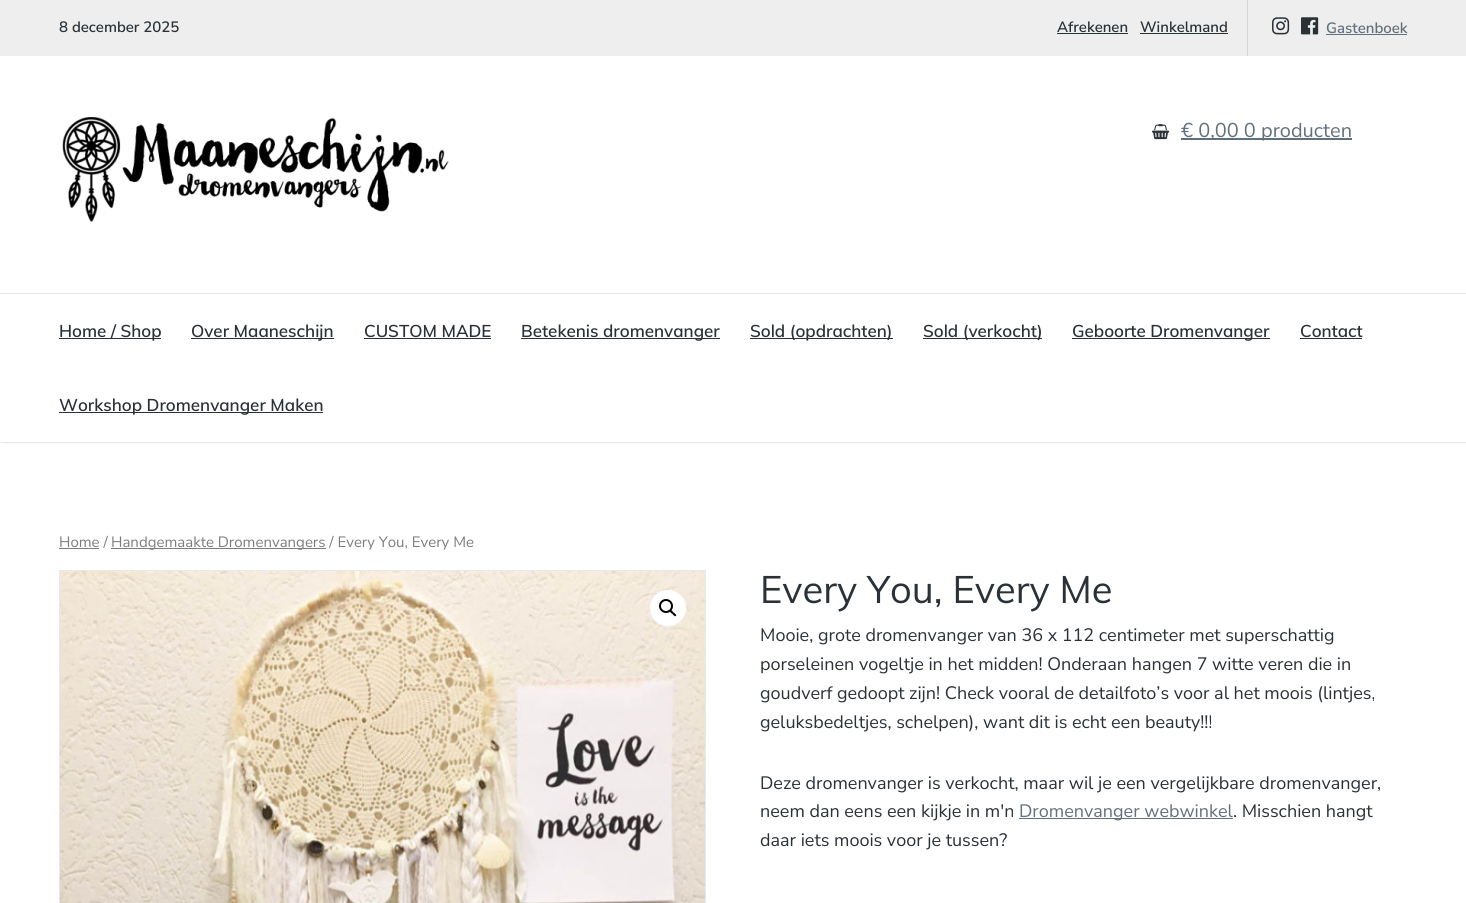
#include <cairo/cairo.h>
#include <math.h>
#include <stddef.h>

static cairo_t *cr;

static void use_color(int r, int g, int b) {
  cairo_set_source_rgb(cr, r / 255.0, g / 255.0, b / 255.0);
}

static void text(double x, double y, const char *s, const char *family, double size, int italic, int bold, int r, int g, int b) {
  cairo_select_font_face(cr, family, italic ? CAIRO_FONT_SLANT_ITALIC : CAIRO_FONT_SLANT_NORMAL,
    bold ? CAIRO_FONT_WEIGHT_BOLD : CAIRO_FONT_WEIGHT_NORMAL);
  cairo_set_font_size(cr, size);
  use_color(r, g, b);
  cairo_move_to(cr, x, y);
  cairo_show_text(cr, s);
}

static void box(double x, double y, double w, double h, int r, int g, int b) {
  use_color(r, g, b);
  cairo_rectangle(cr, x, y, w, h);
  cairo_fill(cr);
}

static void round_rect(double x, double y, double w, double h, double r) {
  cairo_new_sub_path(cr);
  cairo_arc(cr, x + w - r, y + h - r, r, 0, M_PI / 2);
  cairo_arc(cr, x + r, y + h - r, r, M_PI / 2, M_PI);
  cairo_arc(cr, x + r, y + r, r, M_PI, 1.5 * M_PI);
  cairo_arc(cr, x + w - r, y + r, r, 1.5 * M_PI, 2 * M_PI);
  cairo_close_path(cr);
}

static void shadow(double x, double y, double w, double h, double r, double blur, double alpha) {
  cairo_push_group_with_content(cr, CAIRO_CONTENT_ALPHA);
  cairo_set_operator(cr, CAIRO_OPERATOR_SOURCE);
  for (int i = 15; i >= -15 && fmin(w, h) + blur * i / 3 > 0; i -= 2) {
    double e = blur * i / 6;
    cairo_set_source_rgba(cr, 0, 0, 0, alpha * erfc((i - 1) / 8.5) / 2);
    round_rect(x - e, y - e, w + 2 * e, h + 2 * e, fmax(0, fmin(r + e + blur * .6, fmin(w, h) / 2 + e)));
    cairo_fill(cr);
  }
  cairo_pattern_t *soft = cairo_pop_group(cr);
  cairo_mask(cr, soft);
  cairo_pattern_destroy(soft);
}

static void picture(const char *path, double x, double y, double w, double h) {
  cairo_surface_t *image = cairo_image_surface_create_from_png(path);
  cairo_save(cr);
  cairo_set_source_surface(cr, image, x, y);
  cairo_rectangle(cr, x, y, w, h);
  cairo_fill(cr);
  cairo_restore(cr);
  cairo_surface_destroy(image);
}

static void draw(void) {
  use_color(255, 255, 255);
  cairo_paint(cr);
  box(0, 0, 1466, 56, 238, 238, 238);
  box(1247, 0, 1, 56, 214, 214, 214);
  box(1057, 33, 71, 1, 42, 49, 55);
  box(1140, 33, 88, 1, 42, 49, 55);
  picture("img_01.png", 1272, 17, 18, 18);
  picture("img_02.png", 1301, 17, 18, 18);
  box(1326, 34, 81, 1, 98, 112, 124);
  use_color(0, 0, 0);
  shadow(1, 57, 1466, 386, 0, 0.5, 0.1);
  box(0, 56, 1466, 386, 255, 255, 255);
  picture("img_03.png", 62, 117, 387, 105);
  picture("img_04.png", 1152, 124, 18, 16);
  box(1181, 138, 171, 2, 98, 112, 124);
  box(0, 293, 1466, 1, 230, 230, 230);
  box(59, 338, 102, 1, 42, 49, 55);
  box(191, 338, 143, 1, 42, 49, 55);
  box(364, 338, 127, 1, 42, 49, 55);
  box(521, 338, 199, 1, 42, 49, 55);
  box(750, 338, 143, 1, 42, 49, 55);
  box(923, 338, 119, 1, 42, 49, 55);
  box(1072, 338, 198, 1, 42, 49, 55);
  box(1300, 338, 62, 1, 42, 49, 55);
  box(59, 412, 264, 1, 42, 49, 55);
  box(59, 548, 40, 1, 125, 125, 125);
  box(111, 548, 215, 1, 125, 125, 125);
  cairo_rectangle(cr, 59.5, 570.5, 646, 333);
  use_color(230, 233, 236);
  cairo_set_line_width(cr, 1);
  cairo_stroke(cr);
  picture("img_05.png", 60, 571, 645, 332);
  use_color(255, 255, 255);
  cairo_arc(cr, 668, 608, 18, 0, 2 * M_PI);
  cairo_fill(cr);
  cairo_arc(cr, 666, 606, 6, 0, 2 * M_PI);
  use_color(0, 0, 0);
  cairo_set_line_width(cr, 2);
  cairo_stroke(cr);
  cairo_new_path(cr);
  cairo_move_to(cr, 670, 610.5);
  cairo_curve_to(cr, 671.5, 609, 673, 612, 673.5, 612.5);
  cairo_curve_to(cr, 674.5, 613, 677, 615, 676, 616);
  cairo_curve_to(cr, 674.5, 617, 673, 614.5, 672.5, 614);
  cairo_curve_to(cr, 671.5, 613.5, 669, 611.5, 670, 610.5);
  cairo_close_path(cr);
  cairo_fill(cr);
  box(1019, 818, 214, 1, 98, 112, 124);
  text(59, 32, "8 december 2025", "Nunito Sans SemiBold", 15, 0, 0, 42, 49, 55);
  text(1057, 32, "Afrekenen", "Nunito Sans SemiBold", 15, 0, 0, 42, 49, 55);
  text(1140, 32, "Winkelmand", "Nunito Sans SemiBold", 15, 0, 0, 42, 49, 55);
  text(1326, 33, "Gastenboek", "Nunito Sans SemiBold", 15, 0, 0, 98, 112, 124);
  text(1181, 137, "€ 0,00 0 producten", "Nunito Sans", 20, 0, 0, 98, 112, 124);
  text(59, 337, "Home / Shop", "Muli SemiBold", 17, 0, 0, 42, 49, 55);
  text(191, 337, "Over Maaneschijn", "Muli SemiBold", 17, 0, 0, 42, 49, 55);
  text(364, 337, "CUSTOM MADE", "Muli SemiBold", 17, 0, 0, 42, 49, 55);
  text(521, 337, "Betekenis dromenvanger", "Muli SemiBold", 17, 0, 0, 42, 49, 55);
  text(750, 337, "Sold (opdrachten)", "Muli SemiBold", 17, 0, 0, 42, 49, 55);
  text(923, 337, "Sold (verkocht)", "Muli SemiBold", 17, 0, 0, 42, 49, 55);
  text(1072, 337, "Geboorte Dromenvanger", "Muli SemiBold", 17, 0, 0, 42, 49, 55);
  text(1300, 337, "Contact", "Muli SemiBold", 17, 0, 0, 42, 49, 55);
  text(59, 411, "Workshop Dromenvanger Maken", "Muli SemiBold", 17, 0, 0, 42, 49, 55);
  text(59, 547, "Home /", "Nunito Sans", 15, 0, 0, 125, 125, 125);
  text(111, 547, "Handgemaakte Dromenvangers / Every You, Every Me", "Nunito Sans", 15, 0, 0, 125, 125, 125);
  text(760, 603, "Every You, Every Me", "Muli", 38, 0, 0, 42, 49, 55);
  text(760, 641, "Mooie, grote dromenvanger van 36 x 112 centimeter met superschattig", "Nunito Sans", 18, 0, 0, 42, 49, 55);
  text(760, 670, "porseleinen vogeltje in het midden! Onderaan hangen 7 witte veren die in", "Nunito Sans", 18, 0, 0, 42, 49, 55);
  text(760, 699, "goudverf gedoopt zijn! Check vooral de detailfoto’s voor al het moois (lintjes,", "Nunito Sans", 18, 0, 0, 42, 49, 55);
  text(760, 728, "geluksbedeltjes, schelpen), want dit is echt een beauty!!!", "Nunito Sans", 18, 0, 0, 42, 49, 55);
  text(760, 789, "Deze dromenvanger is verkocht, maar wil je een vergelijkbare dromenvanger,", "Nunito Sans", 18, 0, 0, 42, 49, 55);
  text(760, 817, "neem dan eens een kijkje in m'n", "Nunito Sans", 18, 0, 0, 42, 49, 55);
  text(1019, 817, "Dromenvanger webwinkel", "Nunito Sans", 18, 0, 0, 98, 112, 124);
  text(1233, 817, ". Misschien hangt", "Nunito Sans", 18, 0, 0, 42, 49, 55);
  text(760, 846, "daar iets moois voor je tussen?", "Nunito Sans", 18, 0, 0, 42, 49, 55);
}

int main(void) {
  cairo_surface_t *surface = cairo_image_surface_create(CAIRO_FORMAT_RGB24, 1466, 903);
  cr = cairo_create(surface);
  cairo_font_options_t *options = cairo_font_options_create();
  cairo_font_options_set_hint_metrics(options, CAIRO_HINT_METRICS_OFF);
  cairo_font_options_set_hint_style(options, CAIRO_HINT_STYLE_NONE);
  cairo_set_font_options(cr, options);
  cairo_set_miter_limit(cr, 4);
  draw();
  cairo_surface_write_to_png(surface, "out.png");
  cairo_font_options_destroy(options);
  cairo_destroy(cr);
  cairo_surface_destroy(surface);
  return 0;
}
